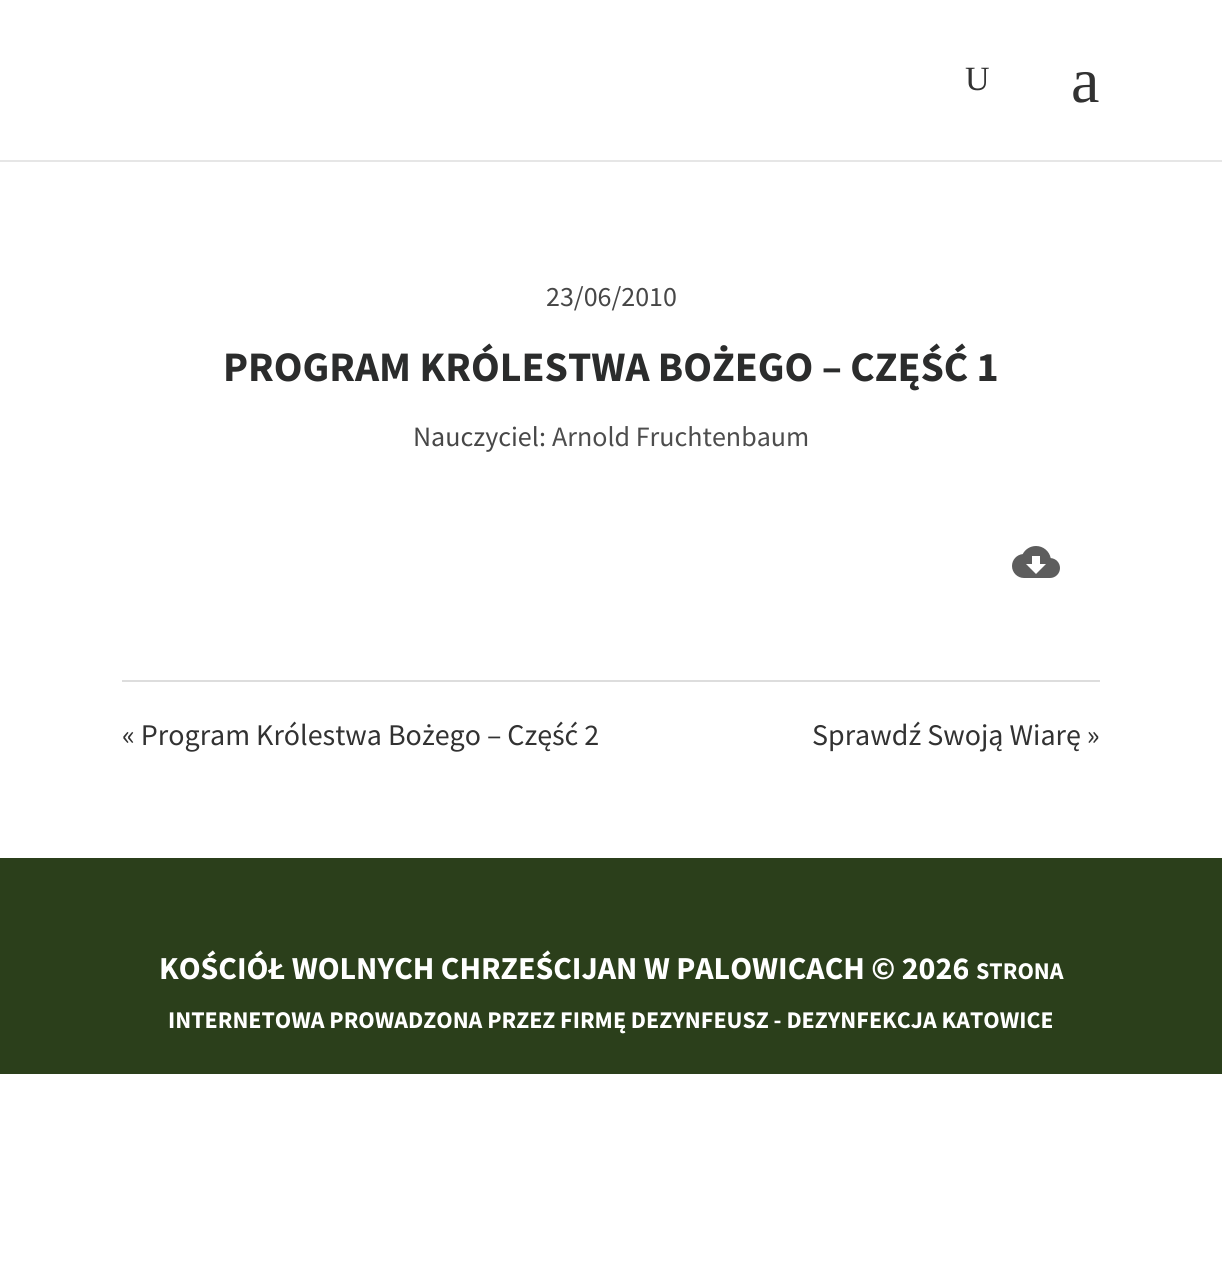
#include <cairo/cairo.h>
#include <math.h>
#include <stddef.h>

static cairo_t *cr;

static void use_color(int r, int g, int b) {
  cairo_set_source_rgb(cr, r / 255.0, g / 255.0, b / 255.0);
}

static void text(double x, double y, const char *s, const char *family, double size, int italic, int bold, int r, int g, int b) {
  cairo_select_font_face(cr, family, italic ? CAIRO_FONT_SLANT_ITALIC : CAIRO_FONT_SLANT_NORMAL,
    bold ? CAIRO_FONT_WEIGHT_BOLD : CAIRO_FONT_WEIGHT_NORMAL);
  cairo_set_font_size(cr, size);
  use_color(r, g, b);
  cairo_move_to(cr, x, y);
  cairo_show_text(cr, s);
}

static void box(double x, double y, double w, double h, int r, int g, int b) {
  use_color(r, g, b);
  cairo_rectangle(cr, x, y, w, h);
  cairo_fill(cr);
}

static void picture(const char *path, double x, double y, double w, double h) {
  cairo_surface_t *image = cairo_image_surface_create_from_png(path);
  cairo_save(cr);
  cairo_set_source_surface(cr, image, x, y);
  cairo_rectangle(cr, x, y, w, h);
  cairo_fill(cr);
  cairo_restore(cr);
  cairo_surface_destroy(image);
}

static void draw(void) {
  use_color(255, 255, 255);
  cairo_paint(cr);
  box(0, 160, 1222, 2, 230, 230, 230);
  picture("img_01.png", 1012, 546, 48, 32);
  box(122, 680, 978, 2, 221, 221, 221);
  box(0, 858, 1222, 216, 43, 63, 27);
  text(965, 90, "U", "Liberation Serif", 34, 0, 0, 50, 50, 50);
  text(1071, 102, "a", "Liberation Serif", 64, 0, 0, 50, 50, 50);
  text(546, 306, "23/06/2010", "Source Sans Pro", 28, 0, 0, 71, 71, 71);
  text(223, 381, "PROGRAM KRÓLESTWA BOŻEGO – CZĘŚĆ 1", "Source Sans Pro", 42, 0, 1, 43, 44, 44);
  text(413, 446, "Nauczyciel:", "Source Sans Pro", 28, 0, 0, 71, 71, 71);
  text(552, 446, "Arnold Fruchtenbaum", "Source Sans Pro", 28, 0, 0, 77, 77, 77);
  text(122, 745, "« Program Królestwa Bożego – Część 2", "Source Sans Pro", 30, 0, 0, 50, 50, 50);
  text(812, 745, "Sprawdź Swoją Wiarę »", "Source Sans Pro", 30, 0, 0, 50, 50, 50);
  text(159, 979, "KOŚCIÓŁ WOLNYCH CHRZEŚCIJAN W PALOWICACH © 2026", "Source Sans Pro", 32, 0, 1, 255, 255, 255);
  text(976, 979, "STRONA", "Source Sans Pro", 24, 0, 1, 255, 255, 255);
  text(168, 1028, "INTERNETOWA PROWADZONA PRZEZ FIRMĘ DEZYNFEUSZ - DEZYNFEKCJA KATOWICE", "Source Sans Pro", 24, 0, 1, 255, 255, 255);
}

int main(void) {
  cairo_surface_t *surface = cairo_image_surface_create(CAIRO_FORMAT_RGB24, 1222, 1283);
  cr = cairo_create(surface);
  cairo_font_options_t *options = cairo_font_options_create();
  cairo_font_options_set_hint_metrics(options, CAIRO_HINT_METRICS_OFF);
  cairo_font_options_set_hint_style(options, CAIRO_HINT_STYLE_NONE);
  cairo_set_font_options(cr, options);
  cairo_set_miter_limit(cr, 4);
  draw();
  cairo_surface_write_to_png(surface, "out.png");
  cairo_font_options_destroy(options);
  cairo_destroy(cr);
  cairo_surface_destroy(surface);
  return 0;
}
